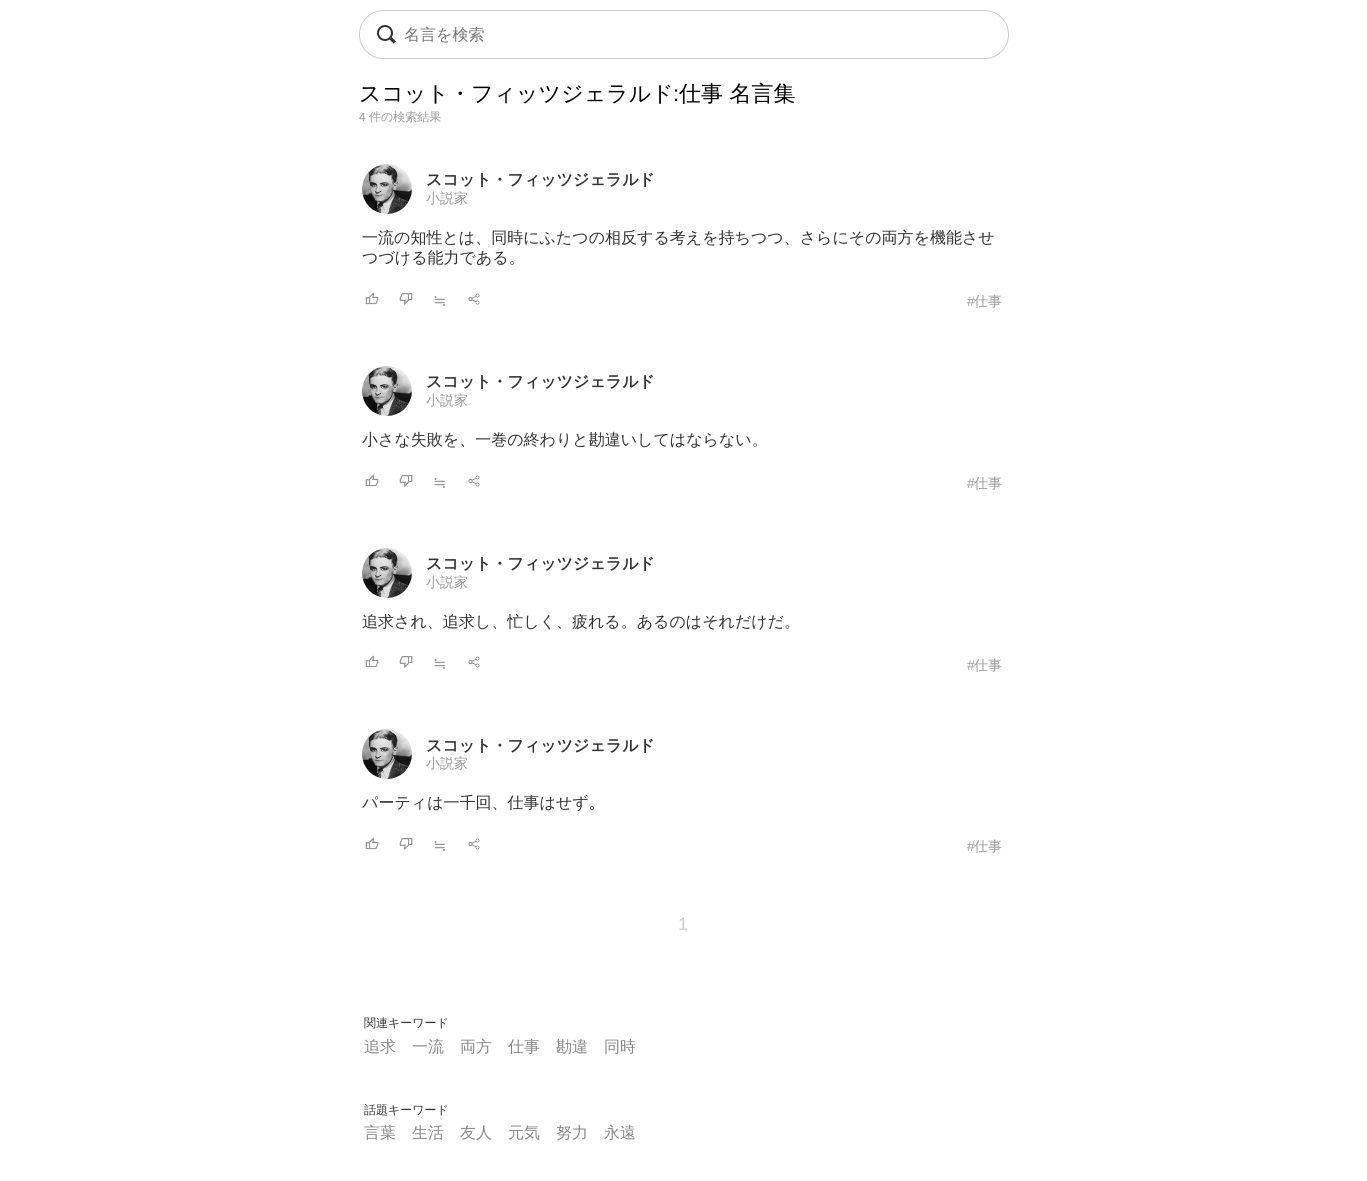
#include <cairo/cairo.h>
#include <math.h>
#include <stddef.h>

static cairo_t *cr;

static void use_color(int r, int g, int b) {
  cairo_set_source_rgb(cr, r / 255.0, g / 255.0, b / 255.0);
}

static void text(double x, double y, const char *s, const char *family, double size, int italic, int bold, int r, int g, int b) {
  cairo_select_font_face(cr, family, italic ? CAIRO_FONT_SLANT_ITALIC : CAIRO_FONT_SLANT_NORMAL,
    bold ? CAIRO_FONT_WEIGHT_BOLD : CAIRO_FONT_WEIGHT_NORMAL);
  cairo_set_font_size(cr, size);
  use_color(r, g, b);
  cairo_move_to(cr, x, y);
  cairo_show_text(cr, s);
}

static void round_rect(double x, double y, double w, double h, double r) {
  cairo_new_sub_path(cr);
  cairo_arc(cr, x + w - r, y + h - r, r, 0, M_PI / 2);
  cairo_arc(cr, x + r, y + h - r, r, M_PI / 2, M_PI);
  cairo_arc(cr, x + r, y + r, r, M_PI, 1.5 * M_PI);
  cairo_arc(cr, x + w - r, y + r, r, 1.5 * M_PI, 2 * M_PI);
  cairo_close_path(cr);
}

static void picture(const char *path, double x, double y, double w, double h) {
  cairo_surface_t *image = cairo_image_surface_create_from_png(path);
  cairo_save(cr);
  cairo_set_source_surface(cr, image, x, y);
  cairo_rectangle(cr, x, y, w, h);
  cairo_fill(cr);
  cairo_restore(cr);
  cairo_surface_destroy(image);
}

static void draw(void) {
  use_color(255, 255, 255);
  cairo_paint(cr);
  round_rect(359.5, 10.5, 649, 48, 24);
  use_color(204, 204, 204);
  cairo_set_line_width(cr, 1);
  cairo_stroke(cr);
  cairo_arc(cr, 385, 33, 7, 0, 2 * M_PI);
  use_color(51, 51, 51);
  cairo_set_line_width(cr, 2);
  cairo_stroke(cr);
  cairo_new_path(cr);
  cairo_move_to(cr, 391.5, 37);
  cairo_line_to(cr, 396, 41.5);
  cairo_line_to(cr, 393.5, 43.5);
  cairo_line_to(cr, 389.5, 39.5);
  cairo_close_path(cr);
  cairo_fill(cr);
  picture("img_01.png", 362, 164, 50, 50);
  picture("img_02.png", 365, 292, 14, 13);
  picture("img_03.png", 399, 293, 14, 12);
  picture("img_04.png", 468, 293, 12, 12);
  picture("img_01.png", 362, 366, 50, 50);
  picture("img_02.png", 365, 474, 14, 13);
  picture("img_03.png", 399, 475, 14, 12);
  picture("img_04.png", 468, 475, 12, 12);
  picture("img_01.png", 362, 548, 50, 50);
  picture("img_02.png", 365, 655, 14, 13);
  picture("img_03.png", 399, 656, 14, 12);
  picture("img_04.png", 468, 656, 12, 12);
  picture("img_05.png", 362, 729, 50, 50);
  picture("img_02.png", 365, 837, 14, 13);
  picture("img_03.png", 399, 838, 14, 12);
  picture("img_04.png", 468, 838, 12, 12);
  text(404, 40, "名言を検索", "WenQuanYi Zen Hei Medium", 16, 0, 0, 117, 117, 117);
  text(359, 101, "スコット・フィッツジェラルド", "WenQuanYi Zen Hei Medium", 22, 0, 0, 0, 0, 0);
  text(673, 101, ":", "Liberation Sans", 22, 0, 0, 0, 0, 0);
  text(679, 101, "仕事 名言集", "WenQuanYi Zen Hei Medium", 22, 0, 0, 0, 0, 0);
  text(359, 121, "4", "Liberation Sans", 12, 0, 0, 153, 153, 153);
  text(369, 121, "件の検索結果", "WenQuanYi Zen Hei Medium", 12, 0, 0, 153, 153, 153);
  text(426, 185, "スコット・フィッツジェラルド", "WenQuanYi Zen Hei", 16, 0, 1, 51, 51, 51);
  text(426, 203, "小説家", "WenQuanYi Zen Hei Medium", 14, 0, 0, 153, 153, 153);
  text(362, 243, "一流の知性とは、同時にふたつの相反する考えを持ちつつ、さらにその両方を機能させ", "WenQuanYi Zen Hei Medium", 16, 0, 0, 51, 51, 51);
  text(362, 263, "つづける能力である。", "WenQuanYi Zen Hei Medium", 16, 0, 0, 51, 51, 51);
  text(433, 306, "≒", "DejaVu Sans", 16, 0, 0, 153, 153, 153);
  text(967, 306, "#", "Liberation Sans", 14, 0, 0, 153, 153, 153);
  text(974, 306, "仕事", "WenQuanYi Zen Hei Medium", 14, 0, 0, 153, 153, 153);
  text(426, 387, "スコット・フィッツジェラルド", "WenQuanYi Zen Hei", 16, 0, 1, 51, 51, 51);
  text(426, 405, "小説家", "WenQuanYi Zen Hei Medium", 14, 0, 0, 153, 153, 153);
  text(362, 445, "小さな失敗を、一巻の終わりと勘違いしてはならない。", "WenQuanYi Zen Hei Medium", 16, 0, 0, 51, 51, 51);
  text(433, 488, "≒", "DejaVu Sans", 16, 0, 0, 153, 153, 153);
  text(967, 488, "#", "Liberation Sans", 14, 0, 0, 153, 153, 153);
  text(974, 488, "仕事", "WenQuanYi Zen Hei Medium", 14, 0, 0, 153, 153, 153);
  text(426, 569, "スコット・フィッツジェラルド", "WenQuanYi Zen Hei", 16, 0, 1, 51, 51, 51);
  text(426, 587, "小説家", "WenQuanYi Zen Hei Medium", 14, 0, 0, 153, 153, 153);
  text(362, 627, "追求され、追求し、忙しく、疲れる。あるのはそれだけだ。", "WenQuanYi Zen Hei Medium", 16, 0, 0, 51, 51, 51);
  text(433, 669, "≒", "DejaVu Sans", 16, 0, 0, 153, 153, 153);
  text(967, 670, "#", "Liberation Sans", 14, 0, 0, 153, 153, 153);
  text(974, 670, "仕事", "WenQuanYi Zen Hei Medium", 14, 0, 0, 153, 153, 153);
  text(426, 751, "スコット・フィッツジェラルド", "WenQuanYi Zen Hei", 16, 0, 1, 51, 51, 51);
  text(426, 768, "小説家", "WenQuanYi Zen Hei Medium", 14, 0, 0, 153, 153, 153);
  text(362, 808, "パーティは一千回、仕事はせず。", "WenQuanYi Zen Hei Medium", 16, 0, 0, 51, 51, 51);
  text(433, 851, "≒", "DejaVu Sans", 16, 0, 0, 153, 153, 153);
  text(967, 851, "#", "Liberation Sans", 14, 0, 0, 153, 153, 153);
  text(974, 851, "仕事", "WenQuanYi Zen Hei Medium", 14, 0, 0, 153, 153, 153);
  text(678, 930, "1", "Liberation Sans", 18, 0, 0, 204, 204, 204);
  text(364, 1027, "関連キーワード", "WenQuanYi Zen Hei Medium", 12, 0, 0, 51, 51, 51);
  text(364, 1052, "追求", "WenQuanYi Zen Hei Medium", 16, 0, 0, 136, 136, 136);
  text(412, 1052, "一流", "WenQuanYi Zen Hei Medium", 16, 0, 0, 136, 136, 136);
  text(460, 1052, "両方", "WenQuanYi Zen Hei Medium", 16, 0, 0, 136, 136, 136);
  text(508, 1052, "仕事", "WenQuanYi Zen Hei Medium", 16, 0, 0, 136, 136, 136);
  text(556, 1052, "勘違", "WenQuanYi Zen Hei Medium", 16, 0, 0, 136, 136, 136);
  text(604, 1052, "同時", "WenQuanYi Zen Hei Medium", 16, 0, 0, 136, 136, 136);
  text(364, 1114, "話題キーワード", "WenQuanYi Zen Hei Medium", 12, 0, 0, 51, 51, 51);
  text(364, 1138, "言葉", "WenQuanYi Zen Hei Medium", 16, 0, 0, 136, 136, 136);
  text(412, 1138, "生活", "WenQuanYi Zen Hei Medium", 16, 0, 0, 136, 136, 136);
  text(460, 1138, "友人", "WenQuanYi Zen Hei Medium", 16, 0, 0, 136, 136, 136);
  text(508, 1138, "元気", "WenQuanYi Zen Hei Medium", 16, 0, 0, 136, 136, 136);
  text(556, 1138, "努力", "WenQuanYi Zen Hei Medium", 16, 0, 0, 136, 136, 136);
  text(604, 1138, "永遠", "WenQuanYi Zen Hei Medium", 16, 0, 0, 136, 136, 136);
}

int main(void) {
  cairo_surface_t *surface = cairo_image_surface_create(CAIRO_FORMAT_RGB24, 1367, 1181);
  cr = cairo_create(surface);
  cairo_font_options_t *options = cairo_font_options_create();
  cairo_font_options_set_hint_metrics(options, CAIRO_HINT_METRICS_OFF);
  cairo_font_options_set_hint_style(options, CAIRO_HINT_STYLE_NONE);
  cairo_set_font_options(cr, options);
  cairo_set_miter_limit(cr, 4);
  draw();
  cairo_surface_write_to_png(surface, "out.png");
  cairo_font_options_destroy(options);
  cairo_destroy(cr);
  cairo_surface_destroy(surface);
  return 0;
}
